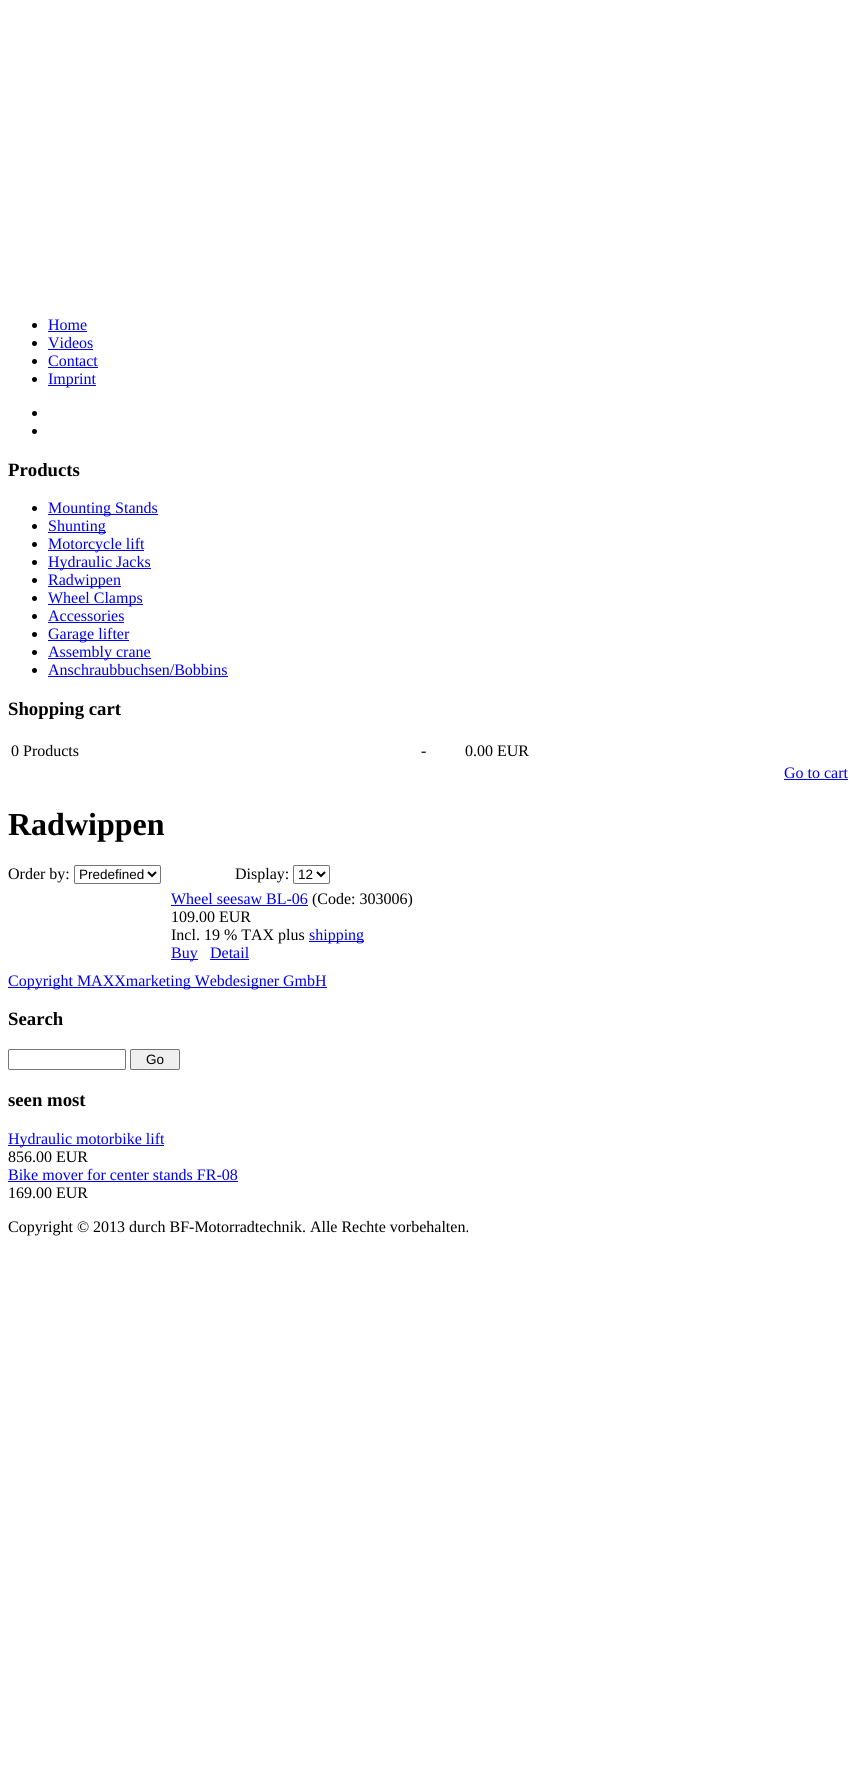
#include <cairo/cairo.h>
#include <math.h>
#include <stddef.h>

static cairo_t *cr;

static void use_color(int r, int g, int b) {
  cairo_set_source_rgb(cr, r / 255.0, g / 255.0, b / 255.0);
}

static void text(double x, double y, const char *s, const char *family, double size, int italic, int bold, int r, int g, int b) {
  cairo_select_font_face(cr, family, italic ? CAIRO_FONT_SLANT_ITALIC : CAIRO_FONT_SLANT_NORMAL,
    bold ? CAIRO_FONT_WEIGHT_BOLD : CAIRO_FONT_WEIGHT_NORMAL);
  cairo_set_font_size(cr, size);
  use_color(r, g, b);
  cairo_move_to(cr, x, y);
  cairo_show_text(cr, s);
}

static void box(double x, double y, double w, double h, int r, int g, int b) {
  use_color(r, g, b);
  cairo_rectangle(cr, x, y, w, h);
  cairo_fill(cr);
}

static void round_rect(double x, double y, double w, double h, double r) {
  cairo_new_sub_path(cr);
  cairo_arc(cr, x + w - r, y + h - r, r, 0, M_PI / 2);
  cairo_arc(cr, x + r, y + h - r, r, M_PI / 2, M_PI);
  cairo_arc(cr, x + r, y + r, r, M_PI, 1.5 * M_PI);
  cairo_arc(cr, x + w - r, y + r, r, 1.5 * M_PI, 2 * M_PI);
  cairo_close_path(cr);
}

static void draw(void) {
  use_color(255, 255, 255);
  cairo_paint(cr);
  use_color(0, 0, 0);
  cairo_arc(cr, 34.5, 325.5, 2.5, 0, 2 * M_PI);
  cairo_fill(cr);
  box(48, 331, 39, 1, 0, 0, 238);
  use_color(0, 0, 0);
  cairo_arc(cr, 34.5, 343.5, 2.5, 0, 2 * M_PI);
  cairo_fill(cr);
  box(48, 349, 45, 1, 0, 0, 238);
  use_color(0, 0, 0);
  cairo_arc(cr, 34.5, 361.5, 2.5, 0, 2 * M_PI);
  cairo_fill(cr);
  box(48, 367, 50, 1, 0, 0, 238);
  use_color(0, 0, 0);
  cairo_arc(cr, 34.5, 379.5, 2.5, 0, 2 * M_PI);
  cairo_fill(cr);
  box(48, 385, 48, 1, 0, 0, 238);
  use_color(0, 0, 0);
  cairo_arc(cr, 34.5, 413.5, 2.5, 0, 2 * M_PI);
  cairo_fill(cr);
  cairo_arc(cr, 34.5, 431.5, 2.5, 0, 2 * M_PI);
  cairo_fill(cr);
  cairo_arc(cr, 34.5, 508.5, 2.5, 0, 2 * M_PI);
  cairo_fill(cr);
  box(48, 514, 110, 1, 0, 0, 238);
  use_color(0, 0, 0);
  cairo_arc(cr, 34.5, 526.5, 2.5, 0, 2 * M_PI);
  cairo_fill(cr);
  box(48, 532, 58, 1, 0, 0, 238);
  use_color(0, 0, 0);
  cairo_arc(cr, 34.5, 544.5, 2.5, 0, 2 * M_PI);
  cairo_fill(cr);
  box(48, 550, 96, 1, 0, 0, 238);
  use_color(0, 0, 0);
  cairo_arc(cr, 34.5, 562.5, 2.5, 0, 2 * M_PI);
  cairo_fill(cr);
  box(48, 568, 103, 1, 0, 0, 238);
  use_color(0, 0, 0);
  cairo_arc(cr, 34.5, 580.5, 2.5, 0, 2 * M_PI);
  cairo_fill(cr);
  box(48, 586, 73, 1, 0, 0, 238);
  use_color(0, 0, 0);
  cairo_arc(cr, 34.5, 598.5, 2.5, 0, 2 * M_PI);
  cairo_fill(cr);
  box(48, 604, 95, 1, 0, 0, 238);
  use_color(0, 0, 0);
  cairo_arc(cr, 34.5, 616.5, 2.5, 0, 2 * M_PI);
  cairo_fill(cr);
  box(48, 622, 76, 1, 0, 0, 238);
  use_color(0, 0, 0);
  cairo_arc(cr, 34.5, 634.5, 2.5, 0, 2 * M_PI);
  cairo_fill(cr);
  box(48, 640, 81, 1, 0, 0, 238);
  use_color(0, 0, 0);
  cairo_arc(cr, 34.5, 652.5, 2.5, 0, 2 * M_PI);
  cairo_fill(cr);
  box(48, 658, 103, 1, 0, 0, 238);
  use_color(0, 0, 0);
  cairo_arc(cr, 34.5, 670.5, 2.5, 0, 2 * M_PI);
  cairo_fill(cr);
  box(48, 676, 180, 1, 0, 0, 238);
  box(784, 779, 64, 1, 0, 0, 238);
  round_rect(74.5, 865.5, 86, 18, 1.5);
  use_color(118, 118, 118);
  cairo_set_line_width(cr, 1);
  cairo_stroke(cr);
  cairo_new_path(cr);
  cairo_move_to(cr, 148, 872);
  cairo_line_to(cr, 152, 876);
  cairo_line_to(cr, 156, 872);
  use_color(0, 0, 0);
  cairo_set_line_width(cr, 2);
  cairo_stroke(cr);
  round_rect(293.5, 865.5, 36, 18, 1.5);
  use_color(118, 118, 118);
  cairo_set_line_width(cr, 1);
  cairo_stroke(cr);
  cairo_new_path(cr);
  cairo_move_to(cr, 317, 872);
  cairo_line_to(cr, 321, 876);
  cairo_line_to(cr, 325, 872);
  use_color(0, 0, 0);
  cairo_set_line_width(cr, 2);
  cairo_stroke(cr);
  box(171, 905, 137, 1, 0, 0, 238);
  box(309, 941, 55, 1, 0, 0, 238);
  box(171, 959, 27, 1, 0, 0, 238);
  box(210, 959, 39, 1, 0, 0, 238);
  box(8, 987, 319, 1, 0, 0, 238);
  round_rect(8.5, 1049.5, 117, 20, 1.5);
  use_color(118, 118, 118);
  cairo_set_line_width(cr, 1);
  cairo_stroke(cr);
  use_color(239, 239, 239);
  round_rect(130.5, 1049.5, 49, 20, 1.5);
  cairo_fill_preserve(cr);
  use_color(118, 118, 118);
  cairo_stroke(cr);
  box(8, 1145, 156, 1, 0, 0, 238);
  box(8, 1181, 230, 1, 0, 0, 238);
  text(48, 330, "Home", "Liberation Serif", 16, 0, 0, 0, 0, 238);
  text(48, 348, "Videos", "Liberation Serif", 16, 0, 0, 0, 0, 238);
  text(48, 366, "Contact", "Liberation Serif", 16, 0, 0, 0, 0, 238);
  text(48, 384, "Imprint", "Liberation Serif", 16, 0, 0, 0, 0, 238);
  text(8, 476, "Products", "Liberation Serif", 18.75, 0, 1, 0, 0, 0);
  text(48, 513, "Mounting Stands", "Liberation Serif", 16, 0, 0, 0, 0, 238);
  text(48, 531, "Shunting", "Liberation Serif", 16, 0, 0, 0, 0, 238);
  text(48, 549, "Motorcycle lift", "Liberation Serif", 16, 0, 0, 0, 0, 238);
  text(48, 567, "Hydraulic Jacks", "Liberation Serif", 16, 0, 0, 0, 0, 238);
  text(48, 585, "Radwippen", "Liberation Serif", 16, 0, 0, 0, 0, 238);
  text(48, 603, "Wheel Clamps", "Liberation Serif", 16, 0, 0, 0, 0, 238);
  text(48, 621, "Accessories", "Liberation Serif", 16, 0, 0, 0, 0, 238);
  text(48, 639, "Garage lifter", "Liberation Serif", 16, 0, 0, 0, 0, 238);
  text(48, 657, "Assembly crane", "Liberation Serif", 16, 0, 0, 0, 0, 238);
  text(48, 675, "Anschraubbuchsen/Bobbins", "Liberation Serif", 16, 0, 0, 0, 0, 238);
  text(8, 715, "Shopping cart", "Liberation Serif", 18.75, 0, 1, 0, 0, 0);
  text(11, 756, "0 Products", "Liberation Serif", 16, 0, 0, 0, 0, 0);
  text(421, 756, "-", "Liberation Serif", 16, 0, 0, 0, 0, 0);
  text(465, 756, "0.00 EUR", "Liberation Serif", 16, 0, 0, 0, 0, 0);
  text(784, 778, "Go to cart", "Liberation Serif", 16, 0, 0, 0, 0, 238);
  text(8, 835, "Radwippen", "Liberation Serif", 32, 0, 1, 0, 0, 0);
  text(8, 879, "Order by:", "Liberation Serif", 16, 0, 0, 0, 0, 0);
  text(79, 879, "Predefined", "Liberation Sans", 13.5, 0, 0, 0, 0, 0);
  text(235, 879, "Display:", "Liberation Serif", 16, 0, 0, 0, 0, 0);
  text(298, 879, "12", "Liberation Sans", 13.5, 0, 0, 0, 0, 0);
  text(171, 904, "Wheel seesaw BL-06", "Liberation Serif", 16, 0, 0, 0, 0, 238);
  text(312, 904, "(Code: 303006)", "Liberation Serif", 16, 0, 0, 0, 0, 0);
  text(171, 922, "109.00 EUR", "Liberation Serif", 16, 0, 0, 0, 0, 0);
  text(171, 940, "Incl. 19 % TAX plus", "Liberation Serif", 16, 0, 0, 0, 0, 0);
  text(309, 940, "shipping", "Liberation Serif", 16, 0, 0, 0, 0, 238);
  text(171, 958, "Buy", "Liberation Serif", 16, 0, 0, 0, 0, 238);
  text(210, 958, "Detail", "Liberation Serif", 16, 0, 0, 0, 0, 238);
  text(8, 986, "Copyright MAXXmarketing Webdesigner GmbH", "Liberation Serif", 16, 0, 0, 0, 0, 238);
  text(8, 1025, "Search", "Liberation Serif", 18.75, 0, 1, 0, 0, 0);
  text(146, 1064, "Go", "Liberation Sans", 13.5, 0, 0, 0, 0, 0);
  text(8, 1106, "seen most", "Liberation Serif", 18.75, 0, 1, 0, 0, 0);
  text(8, 1144, "Hydraulic motorbike lift", "Liberation Serif", 16, 0, 0, 0, 0, 238);
  text(8, 1162, "856.00 EUR", "Liberation Serif", 16, 0, 0, 0, 0, 0);
  text(8, 1180, "Bike mover for center stands FR-08", "Liberation Serif", 16, 0, 0, 0, 0, 238);
  text(8, 1198, "169.00 EUR", "Liberation Serif", 16, 0, 0, 0, 0, 0);
  text(8, 1232, "Copyright © 2013 durch BF-Motorradtechnik. Alle Rechte vorbehalten.", "Liberation Serif", 16, 0, 0, 0, 0, 0);
}

int main(void) {
  cairo_surface_t *surface = cairo_image_surface_create(CAIRO_FORMAT_RGB24, 859, 1783);
  cr = cairo_create(surface);
  cairo_font_options_t *options = cairo_font_options_create();
  cairo_font_options_set_hint_metrics(options, CAIRO_HINT_METRICS_OFF);
  cairo_font_options_set_hint_style(options, CAIRO_HINT_STYLE_NONE);
  cairo_set_font_options(cr, options);
  cairo_set_miter_limit(cr, 4);
  draw();
  cairo_surface_write_to_png(surface, "out.png");
  cairo_font_options_destroy(options);
  cairo_destroy(cr);
  cairo_surface_destroy(surface);
  return 0;
}
